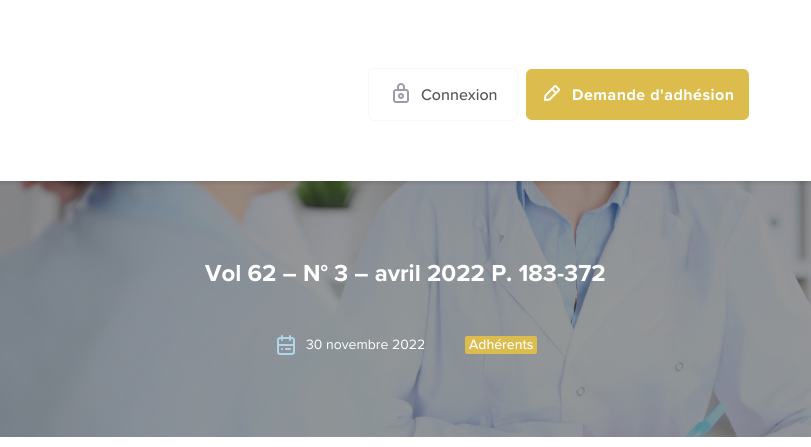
#include <cairo/cairo.h>
#include <math.h>
#include <stddef.h>

static cairo_t *cr;

static void use_color(int r, int g, int b) {
  cairo_set_source_rgb(cr, r / 255.0, g / 255.0, b / 255.0);
}

static void text(double x, double y, const char *s, const char *family, double size, int italic, int bold, int r, int g, int b) {
  cairo_select_font_face(cr, family, italic ? CAIRO_FONT_SLANT_ITALIC : CAIRO_FONT_SLANT_NORMAL,
    bold ? CAIRO_FONT_WEIGHT_BOLD : CAIRO_FONT_WEIGHT_NORMAL);
  cairo_set_font_size(cr, size);
  use_color(r, g, b);
  cairo_move_to(cr, x, y);
  cairo_show_text(cr, s);
}

static void spaced_text(double x, double y, const char *s, double letter, double word) {
  cairo_move_to(cr, x, y);
  while (*s) {
    char ch[5] = {0};
    int n = 0;
    do ch[n++] = *s++; while ((*s & 0xC0) == 0x80);
    cairo_show_text(cr, ch);
    cairo_rel_move_to(cr, letter + word * (*ch == ' '), 0);
  }
}

static void round_rect(double x, double y, double w, double h, double r) {
  cairo_new_sub_path(cr);
  cairo_arc(cr, x + w - r, y + h - r, r, 0, M_PI / 2);
  cairo_arc(cr, x + r, y + h - r, r, M_PI / 2, M_PI);
  cairo_arc(cr, x + r, y + r, r, M_PI, 1.5 * M_PI);
  cairo_arc(cr, x + w - r, y + r, r, 1.5 * M_PI, 2 * M_PI);
  cairo_close_path(cr);
}

static void shadow(double x, double y, double w, double h, double r, double blur, double alpha) {
  cairo_push_group_with_content(cr, CAIRO_CONTENT_ALPHA);
  cairo_set_operator(cr, CAIRO_OPERATOR_SOURCE);
  for (int i = 15; i >= -15 && fmin(w, h) + blur * i / 3 > 0; i -= 2) {
    double e = blur * i / 6;
    cairo_set_source_rgba(cr, 0, 0, 0, alpha * erfc((i - 1) / 8.5) / 2);
    round_rect(x - e, y - e, w + 2 * e, h + 2 * e, fmax(0, fmin(r + e + blur * .6, fmin(w, h) / 2 + e)));
    cairo_fill(cr);
  }
  cairo_pattern_t *soft = cairo_pop_group(cr);
  cairo_mask(cr, soft);
  cairo_pattern_destroy(soft);
}

static void picture(const char *path, double x, double y, double w, double h) {
  cairo_surface_t *image = cairo_image_surface_create_from_png(path);
  cairo_save(cr);
  cairo_set_source_surface(cr, image, x, y);
  cairo_rectangle(cr, x, y, w, h);
  cairo_fill(cr);
  cairo_restore(cr);
  cairo_surface_destroy(image);
}

static void draw(void) {
  use_color(255, 255, 255);
  cairo_paint(cr);
  picture("img_03.png", 0, 181, 811, 256);
  cairo_save(cr);
  cairo_rectangle(cr, 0, 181, 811, 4);
  cairo_clip(cr);
  use_color(0, 0, 0);
  shadow(0, 1, 811, 181, 0, 2.5, 0.15);
  cairo_restore(cr);
  round_rect(368.5, 68.5, 149, 52, 5.5);
  use_color(248, 248, 248);
  cairo_set_line_width(cr, 1);
  cairo_stroke(cr);
  picture("img_01.png", 393, 83, 16, 20);
  use_color(220, 188, 76);
  round_rect(526, 69, 223, 51, 6);
  cairo_fill(cr);
  picture("img_02.png", 544, 85, 16, 16);
  picture("img_04.png", 277, 335, 18, 20);
  round_rect(465, 336, 72, 18, 2);
  cairo_fill(cr);
  text(421, 100, "Connexion", "Proxima Nova Medium", 16, 0, 0, 86, 86, 87);
  cairo_select_font_face(cr, "Proxima Nova", CAIRO_FONT_SLANT_NORMAL, CAIRO_FONT_WEIGHT_BOLD);
  use_color(255, 255, 255);
  spaced_text(572, 100, "Demande d'adhésion", 0.5, 0);
  text(205, 281, "Vol 62 – N° 3 – avril 2022 P. 183-372", "Proxima Nova", 24, 0, 1, 255, 255, 255);
  text(306, 349, "30 novembre 2022", "Proxima Nova", 14, 0, 0, 255, 255, 255);
  text(469, 349, "Adhérents", "Proxima Nova Medium", 14, 0, 0, 255, 255, 255);
}

int main(void) {
  cairo_surface_t *surface = cairo_image_surface_create(CAIRO_FORMAT_RGB24, 811, 447);
  cr = cairo_create(surface);
  cairo_font_options_t *options = cairo_font_options_create();
  cairo_font_options_set_hint_metrics(options, CAIRO_HINT_METRICS_OFF);
  cairo_font_options_set_hint_style(options, CAIRO_HINT_STYLE_NONE);
  cairo_set_font_options(cr, options);
  cairo_set_miter_limit(cr, 4);
  draw();
  cairo_surface_write_to_png(surface, "out.png");
  cairo_font_options_destroy(options);
  cairo_destroy(cr);
  cairo_surface_destroy(surface);
  return 0;
}
